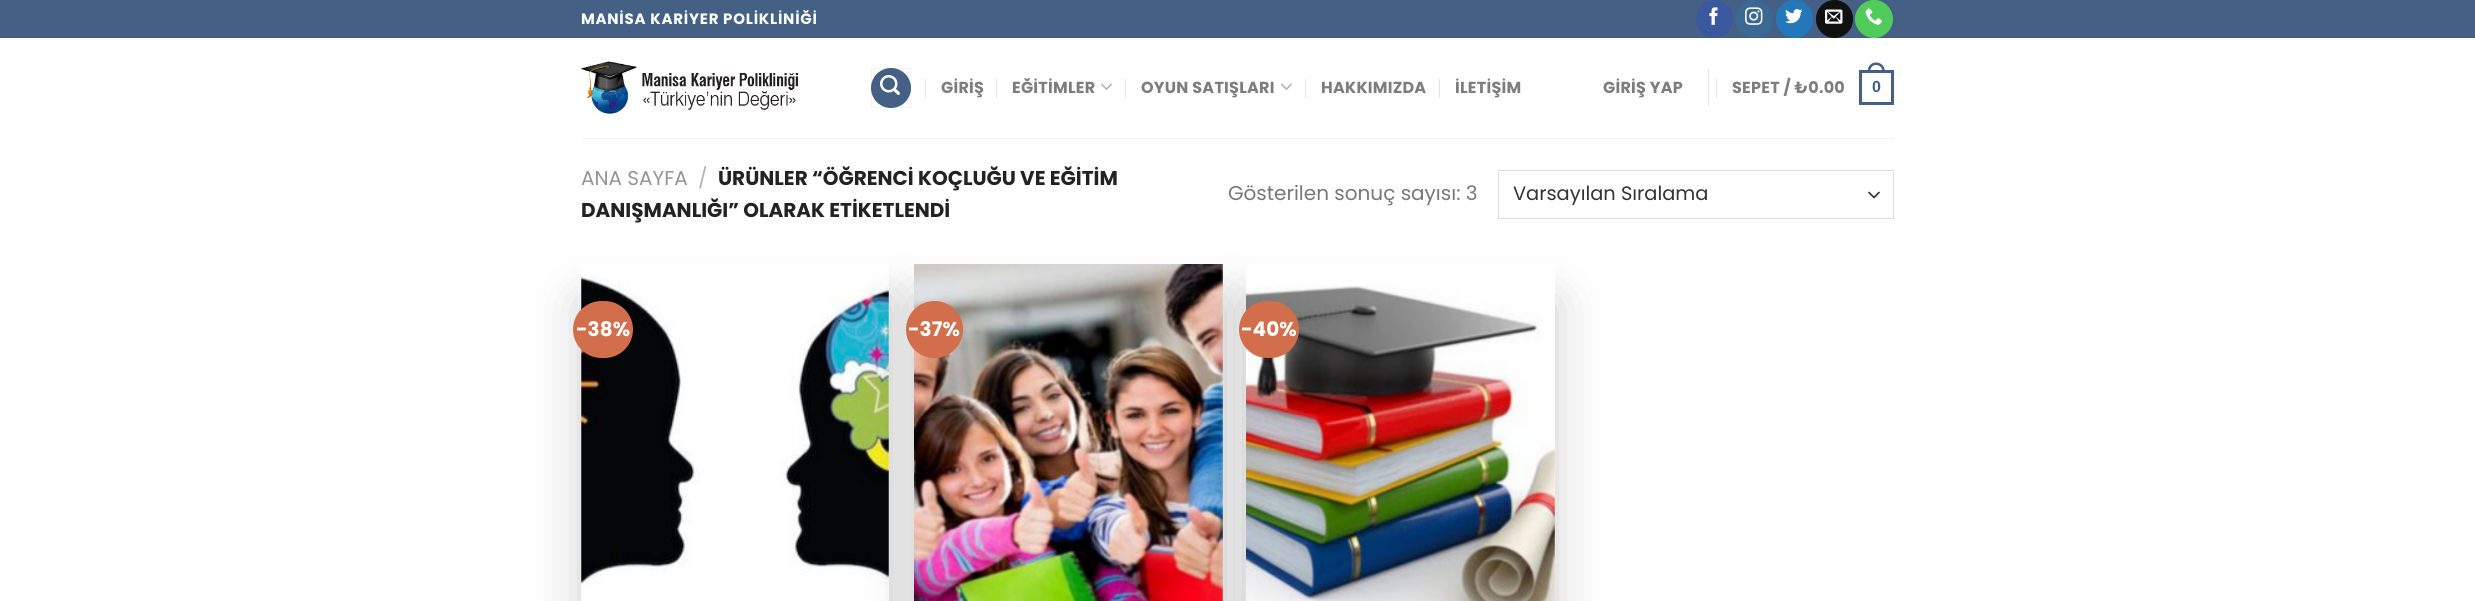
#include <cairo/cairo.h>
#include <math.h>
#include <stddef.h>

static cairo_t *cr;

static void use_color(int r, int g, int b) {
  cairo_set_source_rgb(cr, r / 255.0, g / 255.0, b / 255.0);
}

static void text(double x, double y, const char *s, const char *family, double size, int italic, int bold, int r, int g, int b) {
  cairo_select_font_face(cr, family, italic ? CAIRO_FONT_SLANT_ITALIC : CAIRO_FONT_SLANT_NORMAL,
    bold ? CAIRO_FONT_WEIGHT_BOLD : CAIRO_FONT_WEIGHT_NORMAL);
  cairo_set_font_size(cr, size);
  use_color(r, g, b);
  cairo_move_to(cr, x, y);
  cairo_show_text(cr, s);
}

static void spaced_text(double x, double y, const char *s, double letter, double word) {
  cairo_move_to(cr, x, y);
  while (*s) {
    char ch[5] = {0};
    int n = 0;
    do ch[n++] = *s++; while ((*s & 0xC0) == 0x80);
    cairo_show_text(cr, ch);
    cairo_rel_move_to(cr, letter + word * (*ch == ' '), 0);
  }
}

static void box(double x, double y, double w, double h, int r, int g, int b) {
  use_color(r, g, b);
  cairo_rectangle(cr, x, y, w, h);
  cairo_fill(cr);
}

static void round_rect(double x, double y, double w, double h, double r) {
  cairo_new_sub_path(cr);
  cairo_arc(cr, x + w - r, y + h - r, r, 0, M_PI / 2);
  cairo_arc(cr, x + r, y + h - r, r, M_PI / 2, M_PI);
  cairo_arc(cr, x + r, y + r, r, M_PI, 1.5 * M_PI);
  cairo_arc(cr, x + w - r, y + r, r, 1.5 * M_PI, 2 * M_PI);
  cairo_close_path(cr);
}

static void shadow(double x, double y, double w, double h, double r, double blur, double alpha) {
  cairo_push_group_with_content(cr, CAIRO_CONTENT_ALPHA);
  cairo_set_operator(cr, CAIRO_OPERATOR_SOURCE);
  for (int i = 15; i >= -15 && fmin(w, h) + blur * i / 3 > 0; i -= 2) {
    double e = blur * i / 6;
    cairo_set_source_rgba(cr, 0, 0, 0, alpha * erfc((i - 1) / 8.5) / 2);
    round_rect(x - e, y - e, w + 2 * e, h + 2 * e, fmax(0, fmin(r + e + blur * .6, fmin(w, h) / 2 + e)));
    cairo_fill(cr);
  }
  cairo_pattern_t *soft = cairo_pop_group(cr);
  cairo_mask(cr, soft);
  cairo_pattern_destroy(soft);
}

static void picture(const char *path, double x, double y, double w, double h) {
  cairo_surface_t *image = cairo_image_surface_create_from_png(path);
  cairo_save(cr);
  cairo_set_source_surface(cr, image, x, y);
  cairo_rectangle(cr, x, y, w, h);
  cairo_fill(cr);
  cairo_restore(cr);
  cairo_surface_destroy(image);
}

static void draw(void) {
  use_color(255, 255, 255);
  cairo_paint(cr);
  box(0, 0, 2475, 38, 68, 96, 132);
  use_color(58, 88, 157);
  round_rect(1696.5, 0.5, 36, 37, 18);
  cairo_fill_preserve(cr);
  cairo_set_line_width(cr, 1);
  cairo_stroke(cr);
  picture("img_01.png", 1709, 7, 9, 18);
  use_color(59, 105, 148);
  round_rect(1736.5, 0.5, 36, 37, 18);
  cairo_fill_preserve(cr);
  cairo_stroke(cr);
  picture("img_02.png", 1745, 7, 18, 18);
  use_color(36, 120, 186);
  round_rect(1776.5, 0.5, 36, 37, 18);
  cairo_fill_preserve(cr);
  cairo_stroke(cr);
  picture("img_03.png", 1785, 9, 18, 15);
  use_color(17, 17, 17);
  round_rect(1816.5, 0.5, 36, 37, 18);
  cairo_fill_preserve(cr);
  cairo_stroke(cr);
  picture("img_04.png", 1825, 9, 18, 15);
  use_color(81, 203, 90);
  cairo_arc(cr, 1874, 19, 18.5, 0, 2 * M_PI);
  cairo_fill_preserve(cr);
  cairo_stroke(cr);
  picture("img_05.png", 1865, 8, 17, 17);
  picture("img_06.png", 581, 61, 217, 53);
  use_color(68, 96, 132);
  cairo_arc(cr, 891, 88, 20, 0, 2 * M_PI);
  cairo_fill(cr);
  cairo_rectangle(cr, 871.5, 68.5, 39, 39);
  cairo_set_source_rgba(cr, 0, 0, 0, 0.05);
  cairo_stroke(cr);
  picture("img_07.png", 880, 75, 20, 20);
  box(925, 79, 1, 19, 230, 230, 230);
  box(996, 79, 1, 19, 230, 230, 230);
  picture("img_08.png", 1101, 83, 11, 7);
  box(1125, 79, 1, 19, 230, 230, 230);
  picture("img_08.png", 1281, 83, 11, 7);
  box(1305, 79, 1, 19, 230, 230, 230);
  box(1439, 79, 1, 19, 230, 230, 230);
  box(1708, 69, 1, 37, 230, 230, 230);
  box(1716, 79, 1, 19, 230, 230, 230);
  cairo_rectangle(cr, 1860.5, 71.5, 32, 32);
  use_color(68, 96, 132);
  cairo_set_line_width(cr, 3);
  cairo_stroke(cr);
  cairo_set_fill_rule(cr, CAIRO_FILL_RULE_EVEN_ODD);
  cairo_new_path(cr);
  cairo_move_to(cr, 1876, 62.5);
  cairo_curve_to(cr, 1882, 62.5, 1885, 67, 1885, 72.5);
  cairo_line_to(cr, 1867.5, 72.5);
  cairo_curve_to(cr, 1867.5, 67, 1870.5, 62.5, 1876, 62.5);
  cairo_close_path(cr);
  cairo_move_to(cr, 1876, 65);
  cairo_curve_to(cr, 1880.5, 65, 1882.5, 68.5, 1882.5, 72.5);
  cairo_line_to(cr, 1870, 72.5);
  cairo_curve_to(cr, 1870, 68.5, 1872, 65, 1876, 65);
  cairo_close_path(cr);
  cairo_fill(cr);
  box(581, 138, 1313, 1, 241, 241, 241);
  cairo_new_path(cr);
  cairo_move_to(cr, 1869, 192.5);
  cairo_line_to(cr, 1874, 197.5);
  cairo_line_to(cr, 1879, 192.5);
  use_color(51, 51, 51);
  cairo_set_line_width(cr, 1.7);
  cairo_set_line_cap(cr, CAIRO_LINE_CAP_ROUND);
  cairo_set_line_join(cr, CAIRO_LINE_JOIN_ROUND);
  cairo_stroke(cr);
  cairo_rectangle(cr, 1498.5, 170.5, 395, 48);
  use_color(221, 221, 221);
  cairo_set_line_width(cr, 1);
  cairo_set_line_cap(cr, CAIRO_LINE_CAP_BUTT);
  cairo_set_line_join(cr, CAIRO_LINE_JOIN_MITER);
  cairo_stroke(cr);
  use_color(0, 0, 0);
  shadow(581, 301, 308, 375, 0, 25, 0.2);
  box(581, 264, 308, 337, 255, 255, 255);
  picture("img_09.png", 581, 274, 308, 311);
  use_color(210, 110, 75);
  round_rect(573, 301, 60, 57, 28.5);
  cairo_fill(cr);
  use_color(0, 0, 0);
  shadow(914, 301, 309, 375, 0, 25, 0.2);
  picture("img_10.png", 914, 264, 309, 337);
  use_color(210, 110, 75);
  cairo_arc(cr, 934.5, 329.5, 28.5, 0, 2 * M_PI);
  cairo_fill(cr);
  use_color(0, 0, 0);
  shadow(1246, 301, 309, 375, 0, 25, 0.2);
  box(1246, 264, 309, 337, 255, 255, 255);
  picture("img_11.png", 1246, 285, 309, 316);
  use_color(210, 110, 75);
  round_rect(1239, 301, 60, 57, 28.5);
  cairo_fill(cr);
  cairo_select_font_face(cr, "Poppins", CAIRO_FONT_SLANT_NORMAL, CAIRO_FONT_WEIGHT_BOLD);
  cairo_set_font_size(cr, 15);
  use_color(255, 255, 255);
  spaced_text(581, 24, "MANİSA KARİYER POLİKLİNİĞİ", 0.75, 0);
  cairo_set_font_size(cr, 16);
  use_color(125, 125, 125);
  spaced_text(941, 93, "GİRİŞ", 0.25, 0);
  spaced_text(1012, 93, "EĞİTİMLER", 0.25, 0);
  spaced_text(1141, 93, "OYUN SATIŞLARI", 0.25, 0);
  spaced_text(1321, 93, "HAKKIMIZDA", 0.25, 0);
  spaced_text(1455, 93, "İLETİŞİM", 0.25, 0);
  spaced_text(1603, 93, "GİRİŞ YAP", 0.25, 0);
  spaced_text(1732, 93, "SEPET / ₺0.00", 0.25, 0);
  cairo_select_font_face(cr, "Liberation Sans", CAIRO_FONT_SLANT_NORMAL, CAIRO_FONT_WEIGHT_BOLD);
  use_color(68, 96, 132);
  spaced_text(1872, 92, "0", 0.25, 0);
  text(581, 185, "ANA SAYFA", "Poppins", 20, 0, 0, 148, 148, 148);
  text(698, 185, "/", "Poppins", 20, 0, 0, 178, 178, 178);
  text(718, 185, "ÜRÜNLER “ÖĞRENCİ KOÇLUĞU VE EĞİTİM", "Poppins", 20, 0, 1, 34, 34, 34);
  text(581, 217, "DANIŞMANLIĞI” OLARAK ETİKETLENDİ", "Poppins", 20, 0, 1, 34, 34, 34);
  text(1228, 200, "Gösterilen sonuç sayısı: 3", "Poppins", 20, 0, 0, 119, 119, 119);
  text(1513, 200, "Varsayılan Sıralama", "Poppins", 19.4, 0, 0, 51, 51, 51);
  text(576, 336, "-38%", "Poppins", 20, 0, 1, 255, 255, 255);
  text(908, 336, "-37%", "Poppins", 20, 0, 1, 255, 255, 255);
  text(1241, 336, "-40%", "Poppins", 20, 0, 1, 255, 255, 255);
}

int main(void) {
  cairo_surface_t *surface = cairo_image_surface_create(CAIRO_FORMAT_RGB24, 2475, 601);
  cr = cairo_create(surface);
  cairo_font_options_t *options = cairo_font_options_create();
  cairo_font_options_set_hint_metrics(options, CAIRO_HINT_METRICS_OFF);
  cairo_font_options_set_hint_style(options, CAIRO_HINT_STYLE_NONE);
  cairo_set_font_options(cr, options);
  cairo_set_miter_limit(cr, 4);
  draw();
  cairo_surface_write_to_png(surface, "out.png");
  cairo_font_options_destroy(options);
  cairo_destroy(cr);
  cairo_surface_destroy(surface);
  return 0;
}
